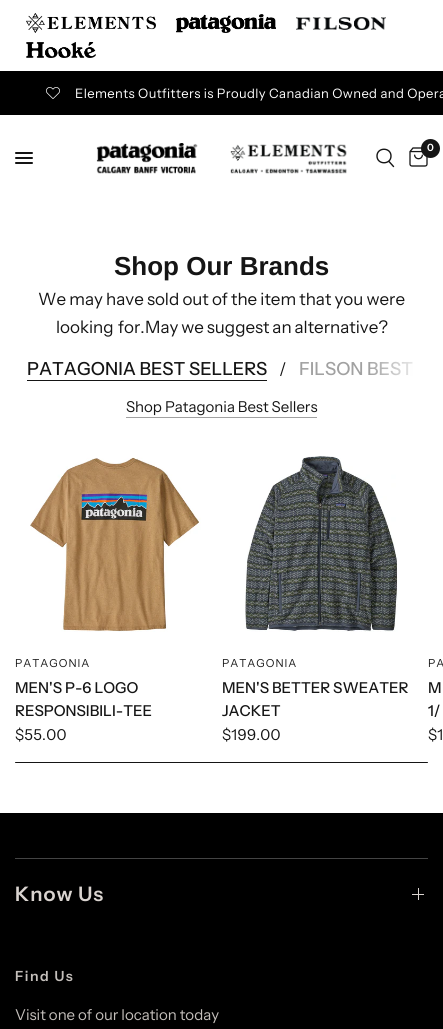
#include <cairo/cairo.h>
#include <math.h>
#include <stddef.h>

static cairo_t *cr;

static void use_color(int r, int g, int b) {
  cairo_set_source_rgb(cr, r / 255.0, g / 255.0, b / 255.0);
}

static void text(double x, double y, const char *s, const char *family, double size, int italic, int bold, int r, int g, int b) {
  cairo_select_font_face(cr, family, italic ? CAIRO_FONT_SLANT_ITALIC : CAIRO_FONT_SLANT_NORMAL,
    bold ? CAIRO_FONT_WEIGHT_BOLD : CAIRO_FONT_WEIGHT_NORMAL);
  cairo_set_font_size(cr, size);
  use_color(r, g, b);
  cairo_move_to(cr, x, y);
  cairo_show_text(cr, s);
}

static void spaced_text(double x, double y, const char *s, double letter, double word) {
  cairo_move_to(cr, x, y);
  while (*s) {
    char ch[5] = {0};
    int n = 0;
    do ch[n++] = *s++; while ((*s & 0xC0) == 0x80);
    cairo_show_text(cr, ch);
    cairo_rel_move_to(cr, letter + word * (*ch == ' '), 0);
  }
}

static void box(double x, double y, double w, double h, int r, int g, int b) {
  use_color(r, g, b);
  cairo_rectangle(cr, x, y, w, h);
  cairo_fill(cr);
}

static void round_rect(double x, double y, double w, double h, double r) {
  cairo_new_sub_path(cr);
  cairo_arc(cr, x + w - r, y + h - r, r, 0, M_PI / 2);
  cairo_arc(cr, x + r, y + h - r, r, M_PI / 2, M_PI);
  cairo_arc(cr, x + r, y + r, r, M_PI, 1.5 * M_PI);
  cairo_arc(cr, x + w - r, y + r, r, 1.5 * M_PI, 2 * M_PI);
  cairo_close_path(cr);
}

static void picture(const char *path, double x, double y, double w, double h) {
  cairo_surface_t *image = cairo_image_surface_create_from_png(path);
  cairo_save(cr);
  cairo_set_source_surface(cr, image, x, y);
  cairo_rectangle(cr, x, y, w, h);
  cairo_fill(cr);
  cairo_restore(cr);
  cairo_surface_destroy(image);
}

static void draw(void) {
  cairo_pattern_t *gradient;
  use_color(255, 255, 255);
  cairo_paint(cr);
  picture("img_01.png", 26, 13, 130, 20);
  picture("img_02.png", 176, 14, 100, 19);
  picture("img_03.png", 296, 17, 90, 13);
  picture("img_04.png", 26, 42, 70, 16);
  box(0, 71, 443, 44, 0, 0, 0);
  picture("img_05.png", 46, 87, 14, 12);
  picture("img_06.png", 96, 143, 251, 31);
  cairo_new_path(cr);
  cairo_move_to(cr, 389, 161.5);
  cairo_line_to(cr, 393.5, 166.5);
  cairo_move_to(cr, 391, 156);
  cairo_curve_to(cr, 391, 165, 377, 165, 377, 156);
  cairo_curve_to(cr, 377, 147, 391, 147, 391, 156);
  cairo_close_path(cr);
  use_color(21, 21, 21);
  cairo_set_line_width(cr, 1.4);
  cairo_set_line_cap(cr, CAIRO_LINE_CAP_ROUND);
  cairo_set_line_join(cr, CAIRO_LINE_JOIN_ROUND);
  cairo_stroke(cr);
  picture("img_07.png", 409, 147, 19, 20);
  cairo_arc(cr, 430.5, 148.5, 9.5, 0, 2 * M_PI);
  cairo_fill(cr);
  round_rect(15, 152, 18, 2, 1);
  cairo_fill(cr);
  round_rect(15, 157, 18, 2, 1);
  cairo_fill(cr);
  round_rect(15, 162, 18, 2, 1);
  cairo_fill(cr);
  box(27, 380, 240, 1, 21, 21, 21);
  box(126, 417, 191, 1, 161, 161, 161);
  picture("img_08.png", 30, 457, 171, 175);
  picture("img_09.png", 245, 456, 153, 176);
  use_color(21, 21, 21);
  round_rect(15, 762, 413, 1, 0.5);
  cairo_fill(cr);
  box(0, 813, 443, 216, 0, 0, 0);
  box(15, 858, 413, 1, 68, 68, 68);
  box(418, 888, 1, 12, 218, 212, 208);
  box(412, 894, 12, 1, 218, 212, 208);
  cairo_select_font_face(cr, "Instrument Sans", CAIRO_FONT_SLANT_NORMAL, CAIRO_FONT_WEIGHT_NORMAL);
  cairo_set_font_size(cr, 13);
  use_color(255, 255, 255);
  spaced_text(75, 98, "Elements Outfitters is Proudly Canadian Owned and Opera", 0.4, 0);
  text(427, 151, "0", "Instrument Sans SemiBold", 10, 0, 0, 255, 255, 255);
  text(114, 275, "Shop Our Brands", "Arimo", 26, 0, 1, 21, 21, 21);
  cairo_select_font_face(cr, "Instrument Sans", CAIRO_FONT_SLANT_NORMAL, CAIRO_FONT_WEIGHT_NORMAL);
  cairo_set_font_size(cr, 17);
  spaced_text(38, 305, "We may have sold out of the item that you were", 0, -0.25);
  spaced_text(56, 333, "looking for.", 0, 1);
  spaced_text(145, 333, "May we suggest an alternative?", 0, -0.5);
  text(27, 375, "PATAGONIA BEST SELLERS", "Instrument Sans Medium", 18, 0, 0, 21, 21, 21);
  text(279, 375, "/", "Instrument Sans", 17, 0, 0, 21, 21, 21);
  text(299, 375, "FILSON BEST", "Instrument Sans Medium", 18, 0, 0, 161, 161, 161);
  gradient = cairo_pattern_create_linear(368, 362, 428, 362);
  cairo_pattern_add_color_stop_rgba(gradient, 0, 0.996, 0.996, 0.996, 0);
  cairo_pattern_add_color_stop_rgba(gradient, 1, 0.996, 0.996, 0.996, 1);
  cairo_set_source(cr, gradient);
  cairo_pattern_destroy(gradient);
  cairo_rectangle(cr, 370, 361, 43, 15);
  cairo_fill(cr);
  text(126, 412, "Shop Patagonia Best Sellers", "Instrument Sans", 15, 0, 0, 21, 21, 21);
  cairo_set_font_size(cr, 11);
  spaced_text(15, 667, "PATAGONIA", 1, 0);
  text(15, 693, "MEN'S P-6 LOGO", "Instrument Sans Medium", 15, 0, 0, 21, 21, 21);
  text(15, 716, "RESPONSIBILI-TEE", "Instrument Sans Medium", 15, 0, 0, 21, 21, 21);
  cairo_select_font_face(cr, "Instrument Sans", CAIRO_FONT_SLANT_NORMAL, CAIRO_FONT_WEIGHT_NORMAL);
  spaced_text(15, 740, "$55.00", 0.25, 0);
  cairo_set_font_size(cr, 11);
  spaced_text(222, 667, "PATAGONIA", 1, 0);
  text(222, 693, "MEN'S BETTER SWEATER", "Instrument Sans Medium", 15, 0, 0, 21, 21, 21);
  text(222, 716, "JACKET", "Instrument Sans Medium", 15, 0, 0, 21, 21, 21);
  cairo_select_font_face(cr, "Instrument Sans", CAIRO_FONT_SLANT_NORMAL, CAIRO_FONT_WEIGHT_NORMAL);
  spaced_text(222, 740, "$199.00", 0.25, 0);
  cairo_set_font_size(cr, 11);
  spaced_text(428, 667, "PA", 1, 0);
  text(428, 693, "M", "Instrument Sans Medium", 15, 0, 0, 21, 21, 21);
  text(428, 716, "1/", "Instrument Sans Medium", 15, 0, 0, 21, 21, 21);
  cairo_select_font_face(cr, "Instrument Sans", CAIRO_FONT_SLANT_NORMAL, CAIRO_FONT_WEIGHT_NORMAL);
  spaced_text(428, 740, "$1", 0.25, 0);
  cairo_select_font_face(cr, "Instrument Sans SemiBold", CAIRO_FONT_SLANT_NORMAL, CAIRO_FONT_WEIGHT_NORMAL);
  cairo_set_font_size(cr, 20);
  use_color(218, 212, 208);
  spaced_text(15, 901, "Know Us", 1, 0);
  cairo_set_font_size(cr, 14);
  use_color(196, 191, 187);
  spaced_text(15, 981, "Find Us", 1.5, 0);
  text(15, 1020, "Visit one of our location today", "Instrument Sans", 15, 0, 0, 196, 191, 187);
}

int main(void) {
  cairo_surface_t *surface = cairo_image_surface_create(CAIRO_FORMAT_RGB24, 443, 1029);
  cr = cairo_create(surface);
  cairo_font_options_t *options = cairo_font_options_create();
  cairo_font_options_set_hint_metrics(options, CAIRO_HINT_METRICS_OFF);
  cairo_font_options_set_hint_style(options, CAIRO_HINT_STYLE_NONE);
  cairo_set_font_options(cr, options);
  cairo_set_miter_limit(cr, 4);
  draw();
  cairo_surface_write_to_png(surface, "out.png");
  cairo_font_options_destroy(options);
  cairo_destroy(cr);
  cairo_surface_destroy(surface);
  return 0;
}
